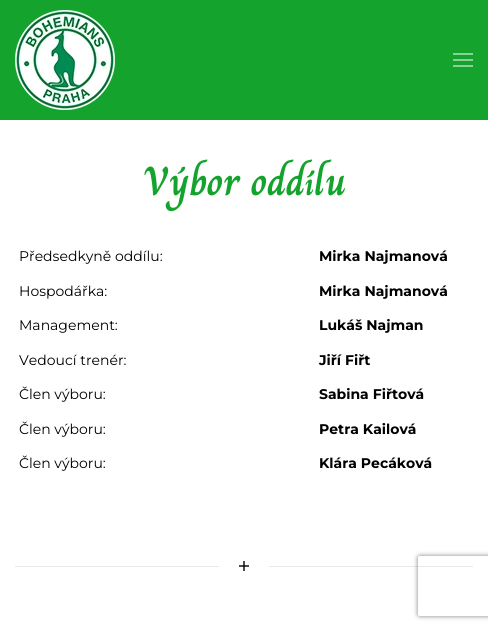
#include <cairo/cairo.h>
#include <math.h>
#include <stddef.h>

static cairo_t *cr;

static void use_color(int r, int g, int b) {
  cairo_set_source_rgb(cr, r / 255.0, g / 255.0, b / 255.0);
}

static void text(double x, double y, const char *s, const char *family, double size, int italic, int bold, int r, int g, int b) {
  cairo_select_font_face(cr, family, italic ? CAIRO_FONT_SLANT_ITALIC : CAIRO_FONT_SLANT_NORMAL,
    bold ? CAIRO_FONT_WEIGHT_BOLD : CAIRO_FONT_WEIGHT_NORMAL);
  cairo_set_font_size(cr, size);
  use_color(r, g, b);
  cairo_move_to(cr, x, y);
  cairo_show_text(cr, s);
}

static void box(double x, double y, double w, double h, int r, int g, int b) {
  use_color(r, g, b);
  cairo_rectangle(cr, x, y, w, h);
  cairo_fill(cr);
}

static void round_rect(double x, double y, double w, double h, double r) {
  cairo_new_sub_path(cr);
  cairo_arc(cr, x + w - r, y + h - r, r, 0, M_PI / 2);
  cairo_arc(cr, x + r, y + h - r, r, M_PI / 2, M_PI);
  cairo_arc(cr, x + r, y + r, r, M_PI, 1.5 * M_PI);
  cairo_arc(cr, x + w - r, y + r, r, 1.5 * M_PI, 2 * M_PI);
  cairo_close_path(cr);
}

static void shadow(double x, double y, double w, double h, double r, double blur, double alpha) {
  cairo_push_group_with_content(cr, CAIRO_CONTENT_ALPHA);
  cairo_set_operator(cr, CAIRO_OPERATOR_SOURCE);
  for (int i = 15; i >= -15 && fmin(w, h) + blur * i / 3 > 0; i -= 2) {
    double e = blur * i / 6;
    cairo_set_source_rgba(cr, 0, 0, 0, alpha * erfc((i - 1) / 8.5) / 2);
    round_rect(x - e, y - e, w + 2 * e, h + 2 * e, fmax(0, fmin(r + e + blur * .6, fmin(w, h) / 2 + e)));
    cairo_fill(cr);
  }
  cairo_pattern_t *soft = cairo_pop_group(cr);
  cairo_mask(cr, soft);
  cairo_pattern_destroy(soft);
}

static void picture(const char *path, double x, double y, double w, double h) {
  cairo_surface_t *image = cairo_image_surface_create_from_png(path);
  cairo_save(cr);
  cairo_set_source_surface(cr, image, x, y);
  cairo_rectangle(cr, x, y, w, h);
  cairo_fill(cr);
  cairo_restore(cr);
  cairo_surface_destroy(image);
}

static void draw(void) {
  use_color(255, 255, 255);
  cairo_paint(cr);
  box(0, 0, 488, 120, 20, 163, 45);
  picture("img_01.png", 15, 10, 100, 100);
  box(453, 53, 20, 2, 138, 209, 150);
  box(453, 59, 20, 2, 138, 209, 150);
  box(453, 65, 20, 2, 138, 209, 150);
  picture("img_02.png", 239, 561, 10, 10);
  box(15, 566, 204, 1, 232, 232, 232);
  box(269, 566, 204, 1, 232, 232, 232);
  cairo_save(cr);
  cairo_set_fill_rule(cr, CAIRO_FILL_RULE_EVEN_ODD);
  cairo_new_path(cr);
  cairo_move_to(cr, 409, 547);
  cairo_line_to(cr, 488, 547);
  cairo_line_to(cr, 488, 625);
  cairo_line_to(cr, 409, 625);
  cairo_close_path(cr);
  cairo_move_to(cr, 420, 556);
  cairo_line_to(cr, 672, 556);
  cairo_curve_to(cr, 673, 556, 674, 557, 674, 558);
  cairo_line_to(cr, 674, 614);
  cairo_curve_to(cr, 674, 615, 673, 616, 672, 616);
  cairo_line_to(cr, 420, 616);
  cairo_curve_to(cr, 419, 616, 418, 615, 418, 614);
  cairo_line_to(cr, 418, 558);
  cairo_curve_to(cr, 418, 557, 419, 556, 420, 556);
  cairo_close_path(cr);
  cairo_clip(cr);
  use_color(128, 128, 128);
  shadow(418, 556, 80, 60, 2, 2.5, 1);
  cairo_restore(cr);
  text(143, 195, "Výbor oddílu", "Charm", 40.5, 0, 1, 20, 163, 45);
  text(19, 261, "Předsedkyně oddílu:", "Montserrat Thin", 14, 0, 0, 0, 0, 0);
  text(319, 261, "Mirka Najmanová", "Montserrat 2 Thin", 14, 0, 0, 0, 0, 0);
  text(19, 296, "Hospodářka:", "Montserrat Thin", 14, 0, 0, 0, 0, 0);
  text(319, 296, "Mirka Najmanová", "Montserrat 2 Thin", 14, 0, 0, 0, 0, 0);
  text(19, 330, "Management:", "Montserrat Thin", 14, 0, 0, 0, 0, 0);
  text(319, 330, "Lukáš Najman", "Montserrat 2 Thin", 14, 0, 0, 0, 0, 0);
  text(19, 365, "Vedoucí trenér:", "Montserrat Thin", 14, 0, 0, 0, 0, 0);
  text(319, 365, "Jiří Fiřt", "Montserrat 2 Thin", 14, 0, 0, 0, 0, 0);
  text(19, 399, "Člen výboru:", "Montserrat Thin", 14, 0, 0, 0, 0, 0);
  text(319, 399, "Sabina Fiřtová", "Montserrat 2 Thin", 14, 0, 0, 0, 0, 0);
  text(19, 434, "Člen výboru:", "Montserrat Thin", 14, 0, 0, 0, 0, 0);
  text(319, 434, "Petra Kailová", "Montserrat 2 Thin", 14, 0, 0, 0, 0, 0);
  text(19, 468, "Člen výboru:", "Montserrat Thin", 14, 0, 0, 0, 0, 0);
  text(319, 468, "Klára Pecáková", "Montserrat 2 Thin", 14, 0, 0, 0, 0, 0);
}

int main(void) {
  cairo_surface_t *surface = cairo_image_surface_create(CAIRO_FORMAT_RGB24, 488, 630);
  cr = cairo_create(surface);
  cairo_font_options_t *options = cairo_font_options_create();
  cairo_font_options_set_hint_metrics(options, CAIRO_HINT_METRICS_OFF);
  cairo_font_options_set_hint_style(options, CAIRO_HINT_STYLE_NONE);
  cairo_set_font_options(cr, options);
  cairo_set_miter_limit(cr, 4);
  draw();
  cairo_surface_write_to_png(surface, "out.png");
  cairo_font_options_destroy(options);
  cairo_destroy(cr);
  cairo_surface_destroy(surface);
  return 0;
}
